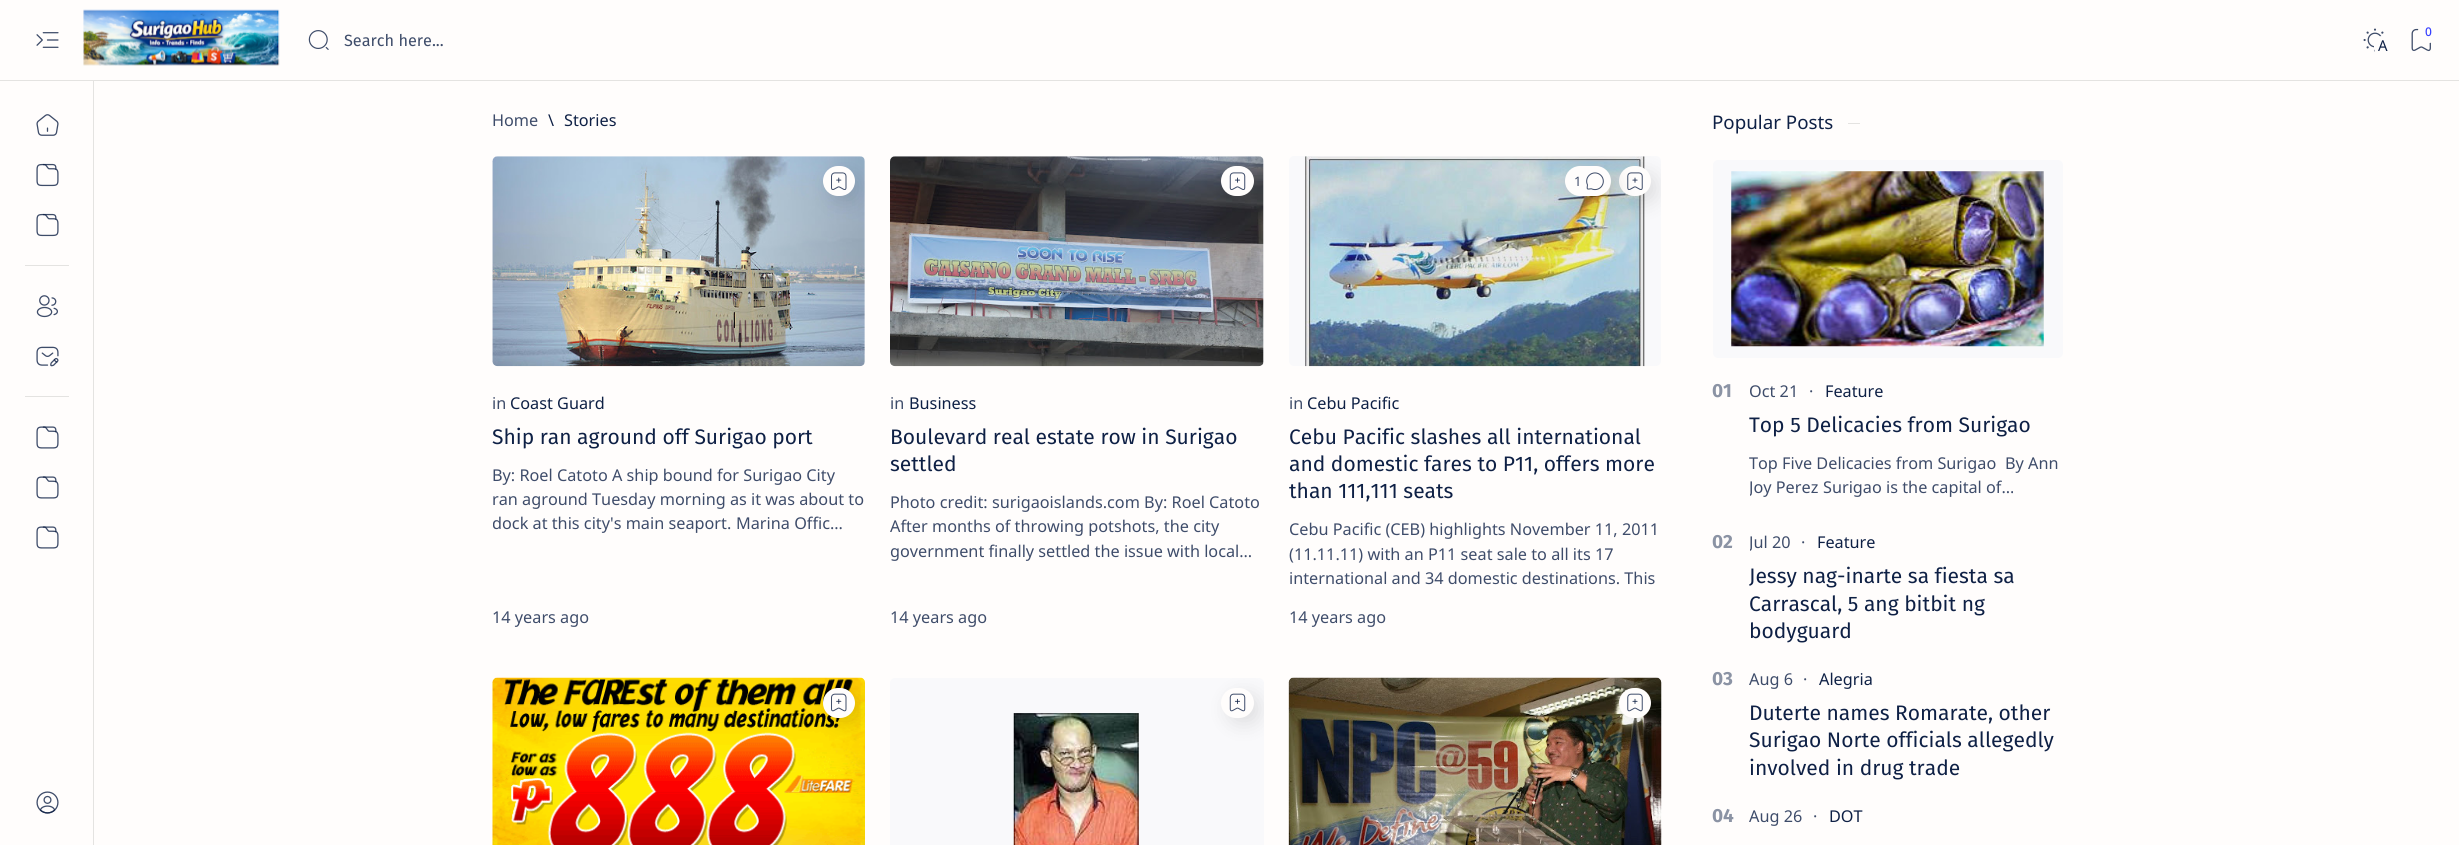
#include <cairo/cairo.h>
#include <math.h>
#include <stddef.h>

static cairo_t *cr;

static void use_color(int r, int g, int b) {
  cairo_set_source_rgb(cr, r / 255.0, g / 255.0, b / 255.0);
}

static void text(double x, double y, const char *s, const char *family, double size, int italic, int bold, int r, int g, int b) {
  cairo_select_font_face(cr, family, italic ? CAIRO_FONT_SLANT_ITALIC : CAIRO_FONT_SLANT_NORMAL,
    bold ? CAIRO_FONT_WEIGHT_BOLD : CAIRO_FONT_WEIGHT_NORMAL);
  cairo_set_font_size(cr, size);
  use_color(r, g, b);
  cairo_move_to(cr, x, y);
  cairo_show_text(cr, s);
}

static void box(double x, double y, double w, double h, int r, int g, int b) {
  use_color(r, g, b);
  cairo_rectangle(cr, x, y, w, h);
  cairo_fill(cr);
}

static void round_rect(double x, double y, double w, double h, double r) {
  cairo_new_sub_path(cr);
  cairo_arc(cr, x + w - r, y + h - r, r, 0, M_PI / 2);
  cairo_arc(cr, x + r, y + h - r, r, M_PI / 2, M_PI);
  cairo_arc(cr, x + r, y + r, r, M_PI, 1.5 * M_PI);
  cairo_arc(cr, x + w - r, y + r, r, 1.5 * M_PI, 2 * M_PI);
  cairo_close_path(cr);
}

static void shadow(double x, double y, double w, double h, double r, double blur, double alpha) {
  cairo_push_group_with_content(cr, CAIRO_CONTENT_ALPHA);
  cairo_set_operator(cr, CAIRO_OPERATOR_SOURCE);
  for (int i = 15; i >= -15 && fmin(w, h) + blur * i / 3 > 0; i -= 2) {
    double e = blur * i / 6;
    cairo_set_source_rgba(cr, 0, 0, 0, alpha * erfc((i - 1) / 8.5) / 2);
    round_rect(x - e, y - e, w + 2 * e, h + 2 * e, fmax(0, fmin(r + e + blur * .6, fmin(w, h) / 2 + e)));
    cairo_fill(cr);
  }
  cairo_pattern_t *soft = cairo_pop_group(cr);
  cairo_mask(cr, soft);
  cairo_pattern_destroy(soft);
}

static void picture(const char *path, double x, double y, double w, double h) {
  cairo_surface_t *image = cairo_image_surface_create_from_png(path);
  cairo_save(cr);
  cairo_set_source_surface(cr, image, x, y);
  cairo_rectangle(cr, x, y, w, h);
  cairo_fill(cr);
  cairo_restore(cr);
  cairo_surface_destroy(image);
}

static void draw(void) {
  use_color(255, 253, 252);
  cairo_paint(cr);
  box(0, 80, 2459, 1, 228, 227, 225);
  picture("img_01.png", 36, 32, 23, 16);
  picture("img_02.png", 83, 9, 197, 57);
  picture("img_03.png", 308, 30, 21, 20);
  picture("img_04.png", 2411, 28, 20, 24);
  use_color(255, 253, 252);
  round_rect(2418, 20, 22, 23, 11);
  cairo_fill(cr);
  picture("img_05.png", 2363, 28, 21, 24);
  round_rect(2374, 36, 17, 20, 8);
  cairo_fill(cr);
  picture("img_06.png", 36, 114, 23, 22);
  picture("img_07.png", 36, 163, 23, 24);
  picture("img_07.png", 36, 213, 23, 24);
  box(25, 265, 44, 1, 228, 227, 225);
  picture("img_08.png", 36, 295, 22, 23);
  picture("img_09.png", 36, 346, 23, 21);
  box(25, 396, 44, 1, 228, 227, 225);
  picture("img_10.png", 36, 426, 23, 23);
  picture("img_10.png", 36, 476, 23, 23);
  picture("img_10.png", 36, 526, 23, 23);
  picture("img_11.png", 36, 791, 23, 23);
  box(93, 81, 1, 764, 228, 227, 225);
  use_color(249, 249, 251);
  round_rect(493, 156, 372, 210, 5);
  cairo_fill(cr);
  picture("img_13.png", 492, 156, 373, 211);
  cairo_save(cr);
  round_rect(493, 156, 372, 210, 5);
  cairo_clip(cr);
  use_color(0, 0, 0);
  shadow(829, 173, 32, 30, 15, 9.5, 0.1);
  cairo_restore(cr);
  use_color(255, 253, 252);
  round_rect(823, 166, 32, 30, 15);
  cairo_fill(cr);
  picture("img_12.png", 831, 172, 16, 18);
  use_color(249, 249, 251);
  round_rect(890, 156, 374, 210, 5);
  cairo_fill(cr);
  picture("img_14.png", 890, 156, 374, 211);
  use_color(255, 253, 252);
  round_rect(1221, 166, 33, 30, 15);
  cairo_fill(cr);
  picture("img_15.png", 1229, 172, 17, 18);
  use_color(249, 249, 251);
  round_rect(1289, 156, 372, 210, 5);
  cairo_fill(cr);
  picture("img_16.png", 1305, 156, 340, 211);
  cairo_save(cr);
  round_rect(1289, 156, 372, 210, 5);
  cairo_clip(cr);
  use_color(0, 0, 0);
  shadow(1625, 173, 33, 30, 15, 9.5, 0.1);
  cairo_restore(cr);
  use_color(255, 253, 252);
  round_rect(1619, 166, 32, 30, 15);
  cairo_fill(cr);
  use_color(0, 0, 0);
  shadow(1571, 173, 47, 30, 15, 9.5, 0.1);
  use_color(255, 253, 252);
  round_rect(1565, 166, 46, 30, 15);
  cairo_fill(cr);
  picture("img_17.png", 1586, 172, 18, 19);
  picture("img_18.png", 1627, 172, 16, 18);
  picture("img_20.png", 492, 677, 373, 168);
  cairo_save(cr);
  round_rect(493, 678, 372, 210, 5);
  cairo_clip(cr);
  use_color(0, 0, 0);
  shadow(829, 694, 32, 30, 15, 9.5, 0.1);
  cairo_restore(cr);
  round_rect(823, 688, 32, 30, 15);
  cairo_fill(cr);
  picture("img_19.png", 831, 693, 16, 19);
  use_color(249, 249, 251);
  round_rect(890, 678, 374, 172, 5);
  cairo_fill(cr);
  picture("img_21.png", 1013, 713, 126, 132);
  cairo_save(cr);
  round_rect(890, 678, 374, 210, 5);
  cairo_clip(cr);
  use_color(0, 0, 0);
  shadow(1228, 694, 32, 30, 15, 9.5, 0.1);
  cairo_restore(cr);
  use_color(255, 253, 252);
  round_rect(1221, 688, 33, 30, 15);
  cairo_fill(cr);
  picture("img_22.png", 1229, 693, 17, 19);
  picture("img_24.png", 1288, 677, 374, 168);
  cairo_save(cr);
  round_rect(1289, 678, 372, 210, 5);
  cairo_clip(cr);
  use_color(0, 0, 0);
  shadow(1625, 694, 33, 30, 15, 9.5, 0.1);
  cairo_restore(cr);
  round_rect(1619, 688, 32, 30, 15);
  cairo_fill(cr);
  picture("img_23.png", 1627, 693, 16, 19);
  box(1848, 123, 12, 1, 228, 227, 225);
  use_color(249, 249, 251);
  round_rect(1713, 160, 350, 198, 5);
  cairo_fill(cr);
  picture("img_25.png", 1731, 171, 313, 176);
  text(344, 46, "Search here...", "Fira Sans", 16.25, 0, 0, 62, 76, 106);
  text(2425, 36, "0", "Noto Sans Medium", 12, 0, 0, 55, 64, 255);
  text(2378, 51, "A", "Noto Sans", 15, 0, 0, 14, 32, 69);
  text(492, 126, "Home", "Noto Sans", 16.25, 0, 0, 62, 76, 106);
  text(548, 126, "\\", "Noto Sans", 16.25, 0, 0, 14, 32, 69);
  text(564, 126, "Stories", "Noto Sans", 16.25, 0, 0, 14, 32, 69);
  text(492, 409, "in", "Noto Sans", 16.25, 0, 0, 62, 76, 106);
  text(510, 409, "Coast Guard", "Noto Sans", 16.25, 0, 0, 14, 32, 69);
  text(492, 444, "Ship ran aground off Surigao port", "Fira Sans", 21, 0, 0, 14, 32, 69);
  text(492, 481, "By: Roel Catoto A ship bound for Surigao City", "Noto Sans", 16.25, 0, 0, 62, 76, 106);
  text(492, 505, "ran aground Tuesday morning as it was about to", "Noto Sans", 16.25, 0, 0, 62, 76, 106);
  cairo_save(cr);
  cairo_rectangle(cr, 493, 464, 372, 72);
  cairo_clip(cr);
  text(492, 529, "dock at this city's main seaport.", "Noto Sans", 16.25, 0, 0, 62, 76, 106);
  cairo_restore(cr);
  text(736, 529, "Marina Offic…", "Noto Sans", 16.25, 0, 0, 62, 76, 106);
  text(492, 623, "14 years ago", "Noto Sans", 16.25, 0, 0, 62, 76, 106);
  text(890, 409, "in", "Noto Sans", 16.25, 0, 0, 62, 76, 106);
  text(909, 409, "Business", "Noto Sans", 16.25, 0, 0, 14, 32, 69);
  text(890, 444, "Boulevard real estate row in Surigao", "Fira Sans", 21, 0, 0, 14, 32, 69);
  text(890, 471, "settled", "Fira Sans", 21, 0, 0, 14, 32, 69);
  text(890, 508, "Photo credit: surigaoislands.com By: Roel Catoto", "Noto Sans", 16.25, 0, 0, 62, 76, 106);
  text(890, 532, "After months of throwing potshots, the city", "Noto Sans", 16.25, 0, 0, 62, 76, 106);
  text(890, 557, "government finally settled the issue with local…", "Noto Sans", 16.25, 0, 0, 62, 76, 106);
  text(890, 623, "14 years ago", "Noto Sans", 16.25, 0, 0, 62, 76, 106);
  text(1574, 186, "1", "Noto Sans", 13, 0, 0, 62, 76, 106);
  text(1289, 409, "in", "Noto Sans", 16.25, 0, 0, 62, 76, 106);
  text(1307, 409, "Cebu Pacific", "Noto Sans", 16.25, 0, 0, 14, 32, 69);
  text(1289, 444, "Cebu Pacific slashes all international", "Fira Sans", 21, 0, 0, 14, 32, 69);
  text(1289, 471, "and domestic fares to P11, offers more", "Fira Sans", 21, 0, 0, 14, 32, 69);
  text(1289, 498, "than 111,111 seats", "Fira Sans", 21, 0, 0, 14, 32, 69);
  text(1289, 535, "Cebu Pacific (CEB) highlights November 11, 2011", "Noto Sans", 16.25, 0, 0, 62, 76, 106);
  text(1289, 560, "(11.11.11) with an P11 seat sale to all its 17", "Noto Sans", 16.25, 0, 0, 62, 76, 106);
  text(1289, 584, "international and 34 domestic destinations. This", "Noto Sans", 16.25, 0, 0, 62, 76, 106);
  text(1289, 623, "14 years ago", "Noto Sans", 16.25, 0, 0, 62, 76, 106);
  text(1712, 129, "Popular Posts", "Noto Sans", 18.75, 0, 0, 14, 32, 69);
  text(1712, 397, "01", "Fira Sans", 19, 0, 1, 139, 147, 164);
  text(1749, 397, "Oct 21", "Noto Sans", 16.25, 0, 0, 62, 76, 106);
  text(1809, 397, "·", "Noto Sans", 16.25, 0, 0, 62, 76, 106);
  text(1825, 397, "Feature", "Noto Sans", 16.25, 0, 0, 14, 32, 69);
  text(1749, 432, "Top 5 Delicacies from Surigao", "Fira Sans", 21, 0, 0, 14, 32, 69);
  text(1749, 469, "Top Five Delicacies from Surigao", "Noto Sans", 16.25, 0, 0, 62, 76, 106);
  text(2005, 469, "By Ann", "Noto Sans", 16.25, 0, 0, 62, 76, 106);
  cairo_save(cr);
  cairo_rectangle(cr, 1750, 451, 313, 49);
  cairo_clip(cr);
  text(1749, 493, "Joy Perez", "Noto Sans", 16.25, 0, 0, 62, 76, 106);
  cairo_restore(cr);
  text(1823, 493, "Surigao is the capital of…", "Noto Sans", 16.25, 0, 0, 62, 76, 106);
  text(1712, 548, "02", "Fira Sans", 19, 0, 1, 139, 147, 164);
  cairo_save(cr);
  cairo_rectangle(cr, 1750, 531, 41, 23);
  cairo_clip(cr);
  text(1749, 548, "Jul 20", "Noto Sans", 16.25, 0, 0, 62, 76, 106);
  cairo_restore(cr);
  text(1801, 548, "·", "Noto Sans", 16.25, 0, 0, 62, 76, 106);
  text(1817, 548, "Feature", "Noto Sans", 16.25, 0, 0, 14, 32, 69);
  text(1749, 583, "Jessy nag-inarte sa fiesta sa", "Fira Sans", 21, 0, 0, 14, 32, 69);
  text(1749, 611, "Carrascal, 5 ang bitbit ng", "Fira Sans", 21, 0, 0, 14, 32, 69);
  text(1749, 638, "bodyguard", "Fira Sans", 21, 0, 0, 14, 32, 69);
  text(1712, 685, "03", "Fira Sans", 19, 0, 1, 139, 147, 164);
  text(1749, 685, "Aug 6", "Noto Sans", 16.25, 0, 0, 62, 76, 106);
  text(1803, 685, "·", "Noto Sans", 16.25, 0, 0, 62, 76, 106);
  text(1819, 685, "Alegria", "Noto Sans", 16.25, 0, 0, 14, 32, 69);
  text(1749, 720, "Duterte names Romarate, other", "Fira Sans", 21, 0, 0, 14, 32, 69);
  text(1749, 747, "Surigao Norte officials allegedly", "Fira Sans", 21, 0, 0, 14, 32, 69);
  text(1749, 775, "involved in drug trade", "Fira Sans", 21, 0, 0, 14, 32, 69);
  text(1712, 822, "04", "Fira Sans", 19, 0, 1, 139, 147, 164);
  text(1749, 822, "Aug 26", "Noto Sans", 16.25, 0, 0, 62, 76, 106);
  text(1813, 822, "·", "Noto Sans", 16.25, 0, 0, 62, 76, 106);
  text(1829, 822, "DOT", "Noto Sans", 16.25, 0, 0, 14, 32, 69);
}

int main(void) {
  cairo_surface_t *surface = cairo_image_surface_create(CAIRO_FORMAT_RGB24, 2459, 845);
  cr = cairo_create(surface);
  cairo_font_options_t *options = cairo_font_options_create();
  cairo_font_options_set_hint_metrics(options, CAIRO_HINT_METRICS_OFF);
  cairo_font_options_set_hint_style(options, CAIRO_HINT_STYLE_NONE);
  cairo_set_font_options(cr, options);
  cairo_set_miter_limit(cr, 4);
  draw();
  cairo_surface_write_to_png(surface, "out.png");
  cairo_font_options_destroy(options);
  cairo_destroy(cr);
  cairo_surface_destroy(surface);
  return 0;
}
